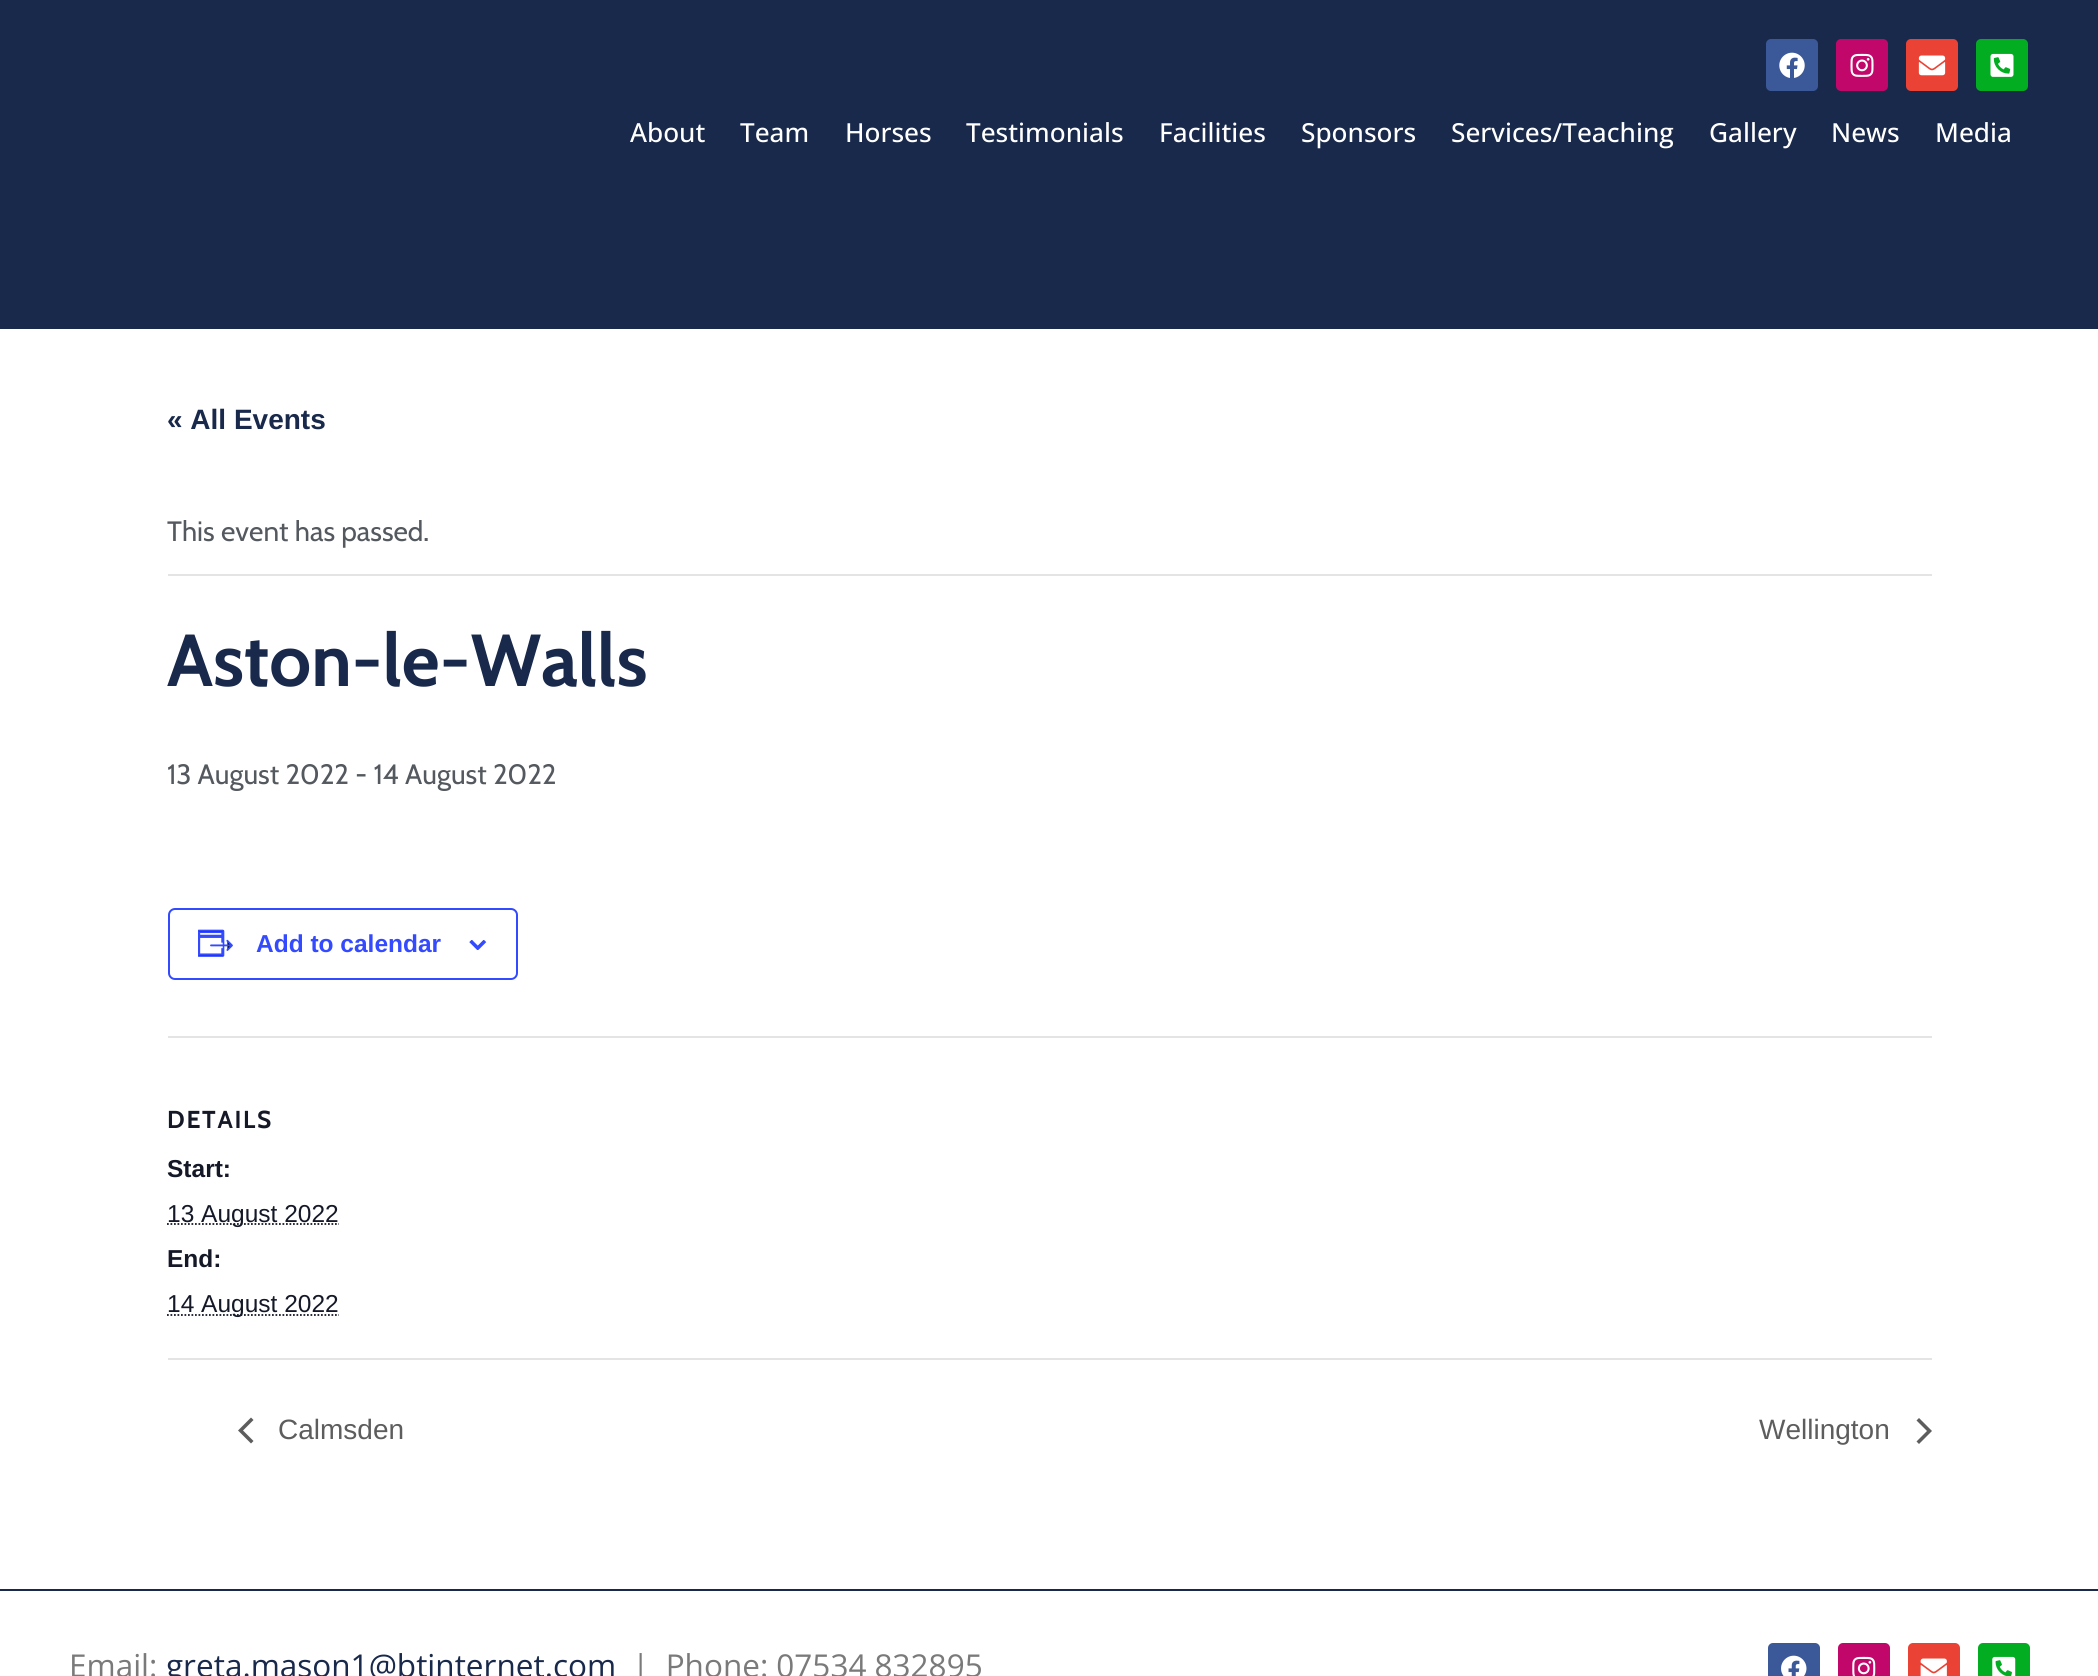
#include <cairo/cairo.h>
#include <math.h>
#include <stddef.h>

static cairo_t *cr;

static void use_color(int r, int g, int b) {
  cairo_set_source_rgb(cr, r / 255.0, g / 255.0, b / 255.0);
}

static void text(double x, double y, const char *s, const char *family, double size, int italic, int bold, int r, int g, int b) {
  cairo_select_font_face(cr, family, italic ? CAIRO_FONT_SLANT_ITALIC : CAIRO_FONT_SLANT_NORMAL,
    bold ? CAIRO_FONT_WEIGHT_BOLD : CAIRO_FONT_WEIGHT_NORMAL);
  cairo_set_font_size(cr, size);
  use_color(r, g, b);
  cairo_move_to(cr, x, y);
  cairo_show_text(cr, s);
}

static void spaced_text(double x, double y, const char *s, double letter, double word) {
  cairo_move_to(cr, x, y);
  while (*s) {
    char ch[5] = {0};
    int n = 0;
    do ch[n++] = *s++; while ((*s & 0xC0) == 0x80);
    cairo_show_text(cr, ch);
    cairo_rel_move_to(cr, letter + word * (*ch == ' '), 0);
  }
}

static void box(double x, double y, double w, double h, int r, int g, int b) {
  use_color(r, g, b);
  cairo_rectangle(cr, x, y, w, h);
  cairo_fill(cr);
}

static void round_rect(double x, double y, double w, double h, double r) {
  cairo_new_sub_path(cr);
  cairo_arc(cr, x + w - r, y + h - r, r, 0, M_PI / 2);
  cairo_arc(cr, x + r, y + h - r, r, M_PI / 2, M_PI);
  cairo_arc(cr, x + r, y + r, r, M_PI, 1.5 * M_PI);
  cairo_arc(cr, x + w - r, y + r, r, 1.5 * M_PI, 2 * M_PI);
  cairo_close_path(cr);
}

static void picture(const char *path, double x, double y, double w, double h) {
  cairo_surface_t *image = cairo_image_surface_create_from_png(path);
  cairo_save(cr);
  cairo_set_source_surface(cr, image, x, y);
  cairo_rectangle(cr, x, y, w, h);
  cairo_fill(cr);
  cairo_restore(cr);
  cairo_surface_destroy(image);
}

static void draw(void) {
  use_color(255, 255, 255);
  cairo_paint(cr);
  box(0, 0, 2098, 329, 25, 41, 75);
  use_color(59, 89, 152);
  round_rect(1766, 39, 52, 52, 5);
  cairo_fill(cr);
  picture("img_01.png", 1779, 52, 26, 26);
  use_color(194, 7, 107);
  round_rect(1836, 39, 52, 52, 5);
  cairo_fill(cr);
  picture("img_02.png", 1850, 53, 24, 24);
  use_color(234, 67, 53);
  round_rect(1906, 39, 52, 52, 5);
  cairo_fill(cr);
  picture("img_03.png", 1918, 55, 28, 21);
  use_color(3, 173, 33);
  round_rect(1976, 39, 52, 52, 5);
  cairo_fill(cr);
  picture("img_04.png", 1990, 53, 24, 24);
  box(168, 574, 1764, 2, 228, 228, 228);
  round_rect(169, 909, 348, 70, 6);
  use_color(51, 74, 255);
  cairo_stroke(cr);
  picture("img_05.png", 198, 929, 35, 28);
  picture("img_06.png", 469, 940, 18, 10);
  box(168, 1036, 1764, 2, 228, 228, 228);
  cairo_new_path(cr);
  cairo_move_to(cr, 167, 1224);
  cairo_line_to(cr, 339, 1224);
  use_color(20, 24, 39);
  cairo_set_line_width(cr, 1.8);
  cairo_set_dash(cr, (double[]){1.75, 1.75}, 2, 0);
  cairo_stroke(cr);
  cairo_new_path(cr);
  cairo_move_to(cr, 167, 1315);
  cairo_line_to(cr, 339, 1315);
  cairo_stroke(cr);
  box(168, 1358, 1764, 2, 228, 228, 228);
  use_color(93, 93, 93);
  cairo_new_path(cr);
  cairo_move_to(cr, 253.5, 1441);
  cairo_line_to(cr, 251, 1443.5);
  cairo_line_to(cr, 238, 1430.5);
  cairo_line_to(cr, 251, 1417.5);
  cairo_line_to(cr, 253.5, 1420);
  cairo_line_to(cr, 243, 1430.5);
  cairo_close_path(cr);
  cairo_fill(cr);
  cairo_new_path(cr);
  cairo_move_to(cr, 1916.5, 1420.5);
  cairo_line_to(cr, 1919, 1418);
  cairo_line_to(cr, 1932, 1431);
  cairo_line_to(cr, 1919, 1444);
  cairo_line_to(cr, 1916.5, 1441.5);
  cairo_line_to(cr, 1927, 1431);
  cairo_close_path(cr);
  cairo_fill(cr);
  box(0, 1589, 2098, 2, 25, 41, 75);
  use_color(59, 89, 152);
  round_rect(1768, 1643, 52, 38, 5);
  cairo_fill(cr);
  picture("img_07.png", 1781, 1655, 26, 21);
  use_color(194, 7, 107);
  round_rect(1838, 1643, 52, 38, 5);
  cairo_fill(cr);
  picture("img_08.png", 1852, 1656, 24, 20);
  use_color(234, 67, 53);
  round_rect(1908, 1643, 52, 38, 5);
  cairo_fill(cr);
  picture("img_09.png", 1920, 1658, 27, 18);
  use_color(3, 173, 33);
  round_rect(1978, 1643, 52, 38, 5);
  cairo_fill(cr);
  picture("img_10.png", 1992, 1656, 24, 20);
  text(630, 142, "About", "Open Sans Medium", 26.25, 0, 0, 255, 255, 255);
  text(740, 142, "Team", "Open Sans Medium", 26.25, 0, 0, 255, 255, 255);
  text(845, 142, "Horses", "Open Sans Medium", 26.25, 0, 0, 255, 255, 255);
  text(966, 142, "Testimonials", "Open Sans Medium", 26.25, 0, 0, 255, 255, 255);
  text(1159, 142, "Facilities", "Open Sans Medium", 26.25, 0, 0, 255, 255, 255);
  text(1301, 142, "Sponsors", "Open Sans Medium", 26.25, 0, 0, 255, 255, 255);
  text(1451, 142, "Services/Teaching", "Open Sans Medium", 26.25, 0, 0, 255, 255, 255);
  text(1709, 142, "Gallery", "Open Sans Medium", 26.25, 0, 0, 255, 255, 255);
  text(1831, 142, "News", "Open Sans Medium", 26.25, 0, 0, 255, 255, 255);
  text(1935, 142, "Media", "Open Sans Medium", 26.25, 0, 0, 255, 255, 255);
  text(167, 429, "« All Events", "Liberation Sans", 28, 0, 1, 25, 41, 75);
  text(167, 541, "This event has passed.", "Cabin", 28, 0, 0, 84, 89, 95);
  text(167, 686, "Aston-le-Walls", "Cabin", 73.5, 0, 1, 25, 41, 75);
  text(167, 784, "13 August 2022 - 14 August 2022", "Cabin", 28, 0, 0, 84, 89, 95);
  text(256, 952, "Add to calendar", "Liberation Sans", 24.5, 0, 1, 51, 74, 255);
  cairo_select_font_face(cr, "Cabin", CAIRO_FONT_SLANT_NORMAL, CAIRO_FONT_WEIGHT_BOLD);
  use_color(20, 24, 39);
  spaced_text(167, 1128, "DETAILS", 1.75, 0);
  text(167, 1177, "Start:", "Liberation Sans", 24.5, 0, 1, 20, 24, 39);
  text(167, 1222, "13 August 2022", "Liberation Sans", 24.5, 0, 0, 20, 24, 39);
  text(167, 1267, "End:", "Liberation Sans", 24.5, 0, 1, 20, 24, 39);
  text(167, 1312, "14 August 2022", "Liberation Sans", 24.5, 0, 0, 20, 24, 39);
  text(278, 1439, "Calmsden", "Liberation Sans", 28, 0, 0, 93, 93, 93);
  text(1759, 1439, "Wellington", "Liberation Sans", 28, 0, 0, 93, 93, 93);
  text(69, 1677, "Email:", "Open Sans", 31.5, 0, 0, 122, 122, 122);
  text(166, 1677, "greta.mason1@btinternet.com", "Open Sans", 31.5, 0, 0, 25, 41, 75);
  text(632, 1677, "|  Phone: 07534 832895", "Open Sans", 31.5, 0, 0, 122, 122, 122);
}

int main(void) {
  cairo_surface_t *surface = cairo_image_surface_create(CAIRO_FORMAT_RGB24, 2098, 1676);
  cr = cairo_create(surface);
  cairo_font_options_t *options = cairo_font_options_create();
  cairo_font_options_set_hint_metrics(options, CAIRO_HINT_METRICS_OFF);
  cairo_font_options_set_hint_style(options, CAIRO_HINT_STYLE_NONE);
  cairo_set_font_options(cr, options);
  cairo_set_miter_limit(cr, 4);
  draw();
  cairo_surface_write_to_png(surface, "out.png");
  cairo_font_options_destroy(options);
  cairo_destroy(cr);
  cairo_surface_destroy(surface);
  return 0;
}
